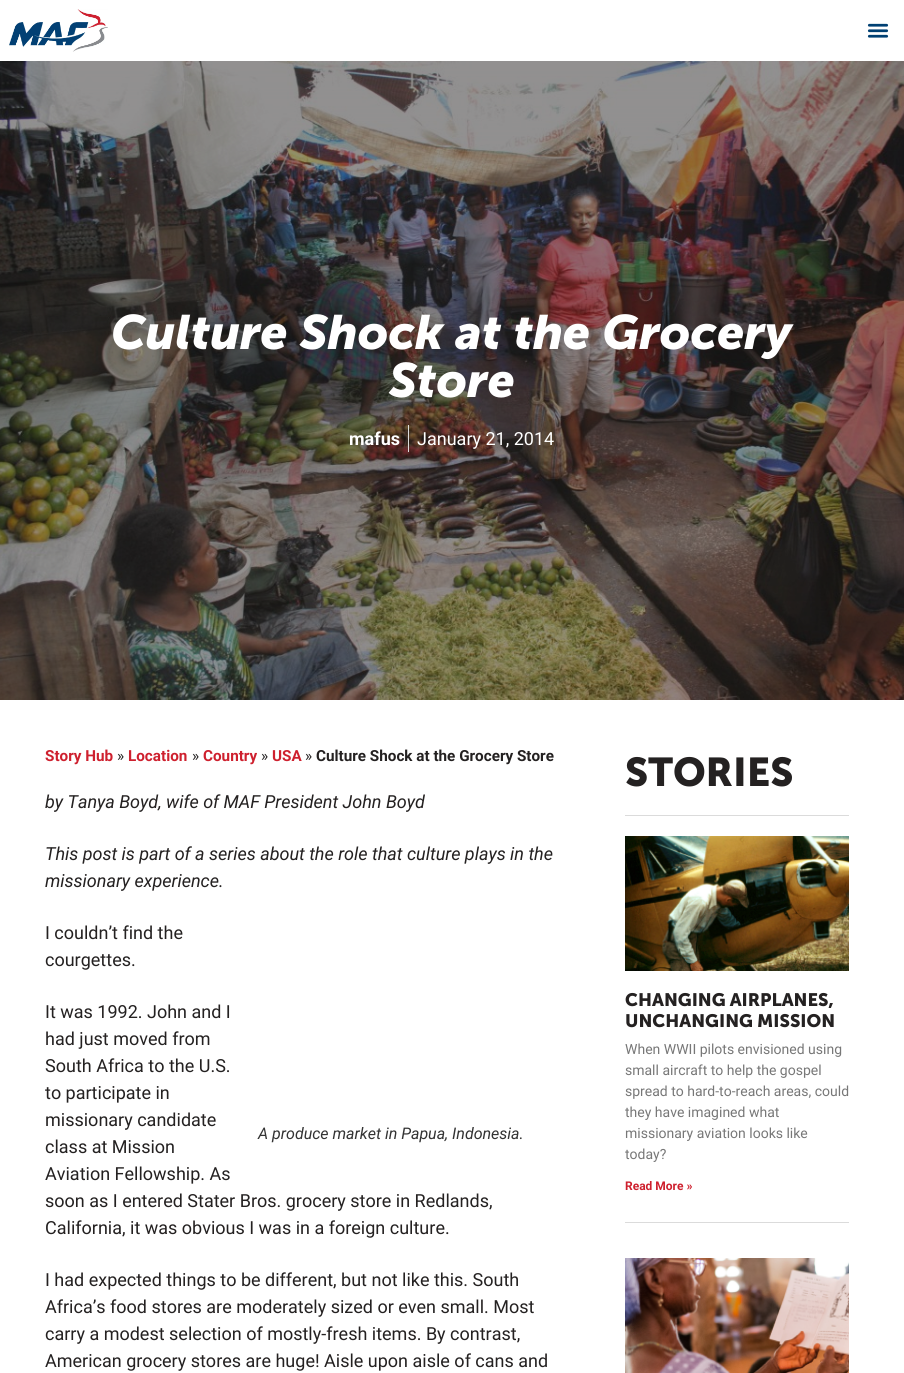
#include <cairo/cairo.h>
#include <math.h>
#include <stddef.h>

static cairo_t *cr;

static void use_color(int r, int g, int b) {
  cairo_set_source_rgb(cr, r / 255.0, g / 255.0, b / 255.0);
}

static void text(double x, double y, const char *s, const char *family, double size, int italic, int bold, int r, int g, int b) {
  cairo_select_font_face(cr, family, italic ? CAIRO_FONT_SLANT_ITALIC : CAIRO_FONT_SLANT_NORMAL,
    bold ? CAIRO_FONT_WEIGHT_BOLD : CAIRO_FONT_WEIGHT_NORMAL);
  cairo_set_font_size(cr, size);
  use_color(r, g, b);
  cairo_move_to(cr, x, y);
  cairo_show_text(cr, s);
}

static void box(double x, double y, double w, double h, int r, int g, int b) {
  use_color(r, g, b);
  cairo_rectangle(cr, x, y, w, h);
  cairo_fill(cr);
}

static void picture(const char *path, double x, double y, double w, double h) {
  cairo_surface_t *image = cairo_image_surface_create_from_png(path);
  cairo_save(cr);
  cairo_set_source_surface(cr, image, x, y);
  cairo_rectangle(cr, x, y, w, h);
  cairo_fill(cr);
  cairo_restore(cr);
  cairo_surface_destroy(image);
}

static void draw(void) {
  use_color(255, 255, 255);
  cairo_paint(cr);
  picture("img_01.png", 9, 9, 99, 43);
  picture("img_02.png", 867, 23, 22, 15);
  picture("img_03.png", 0, 61, 904, 639);
  box(408, 425, 1, 27, 221, 221, 221);
  box(625, 815, 224, 1, 219, 219, 219);
  box(625, 1222, 224, 1, 219, 219, 219);
  picture("img_04.png", 625, 836, 224, 135);
  picture("img_05.png", 625, 1258, 224, 115);
  text(111, 349, "Culture Shock at the Grocery", "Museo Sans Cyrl", 48, 1, 1, 255, 255, 255);
  text(389, 397, "Store", "Museo Sans Cyrl", 48, 1, 1, 255, 255, 255);
  text(349, 445, "mafus", "Roboto", 18, 0, 1, 255, 255, 255);
  text(417, 445, "January 21, 2014", "Roboto", 18, 0, 0, 255, 255, 255);
  text(45, 761, "Story Hub", "Roboto", 15.25, 0, 1, 206, 32, 46);
  text(117, 761, "»", "Roboto", 15.25, 0, 0, 36, 33, 33);
  text(128, 761, "Location", "Roboto", 15.25, 0, 1, 206, 32, 46);
  text(192, 761, "»", "Roboto", 15.25, 0, 0, 36, 33, 33);
  text(203, 761, "Country", "Roboto", 15.25, 0, 1, 206, 32, 46);
  text(261, 761, "»", "Roboto", 15.25, 0, 0, 36, 33, 33);
  text(272, 761, "USA", "Roboto", 15.25, 0, 1, 206, 32, 46);
  text(305, 761, "»", "Roboto", 15.25, 0, 0, 36, 33, 33);
  text(316, 761, "Culture Shock at the Grocery Store", "Roboto", 15.25, 0, 1, 36, 33, 33);
  text(45, 808, "by Tanya Boyd, wife of MAF President John Boyd", "Roboto", 18, 1, 0, 36, 33, 33);
  text(45, 860, "This post is part of a series about the role that culture plays in the", "Roboto", 18, 1, 0, 36, 33, 33);
  text(45, 887, "missionary experience.", "Roboto", 18, 1, 0, 36, 33, 33);
  text(45, 939, "I couldn’t find the", "Roboto", 18, 0, 0, 36, 33, 33);
  text(45, 966, "courgettes.", "Roboto", 18, 0, 0, 36, 33, 33);
  text(45, 1018, "It was 1992. John and I", "Roboto", 18, 0, 0, 36, 33, 33);
  text(45, 1045, "had just moved from", "Roboto", 18, 0, 0, 36, 33, 33);
  text(45, 1072, "South Africa to the U.S.", "Roboto", 18, 0, 0, 36, 33, 33);
  text(45, 1099, "to participate in", "Roboto", 18, 0, 0, 36, 33, 33);
  text(45, 1126, "missionary candidate", "Roboto", 18, 0, 0, 36, 33, 33);
  text(45, 1153, "class at Mission", "Roboto", 18, 0, 0, 36, 33, 33);
  text(45, 1180, "Aviation Fellowship. As", "Roboto", 18, 0, 0, 36, 33, 33);
  text(45, 1207, "soon as I entered Stater Bros. grocery store in Redlands,", "Roboto", 18, 0, 0, 36, 33, 33);
  text(45, 1234, "California, it was obvious I was in a foreign culture.", "Roboto", 18, 0, 0, 36, 33, 33);
  text(258, 1139, "A produce market in Papua, Indonesia.", "Roboto", 16, 1, 0, 51, 51, 51);
  text(45, 1286, "I had expected things to be different, but not like this. South", "Roboto", 18, 0, 0, 36, 33, 33);
  text(45, 1313, "Africa’s food stores are moderately sized or even small. Most", "Roboto", 18, 0, 0, 36, 33, 33);
  text(45, 1340, "carry a modest selection of mostly-fresh items. By contrast,", "Roboto", 18, 0, 0, 36, 33, 33);
  text(45, 1367, "American grocery stores are huge! Aisle upon aisle of cans and", "Roboto", 18, 0, 0, 36, 33, 33);
  text(625, 786, "STORIES", "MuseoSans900", 40, 0, 0, 36, 33, 33);
  text(625, 1006, "CHANGING AIRPLANES,", "MuseoSans900", 18, 0, 0, 36, 33, 33);
  text(625, 1027, "UNCHANGING MISSION", "MuseoSans900", 18, 0, 0, 36, 33, 33);
  text(625, 1054, "When WWII pilots envisioned using", "Roboto", 14, 0, 0, 119, 119, 119);
  text(625, 1075, "small aircraft to help the gospel", "Roboto", 14, 0, 0, 119, 119, 119);
  text(625, 1096, "spread to hard-to-reach areas, could", "Roboto", 14, 0, 0, 119, 119, 119);
  text(625, 1117, "they have imagined what", "Roboto", 14, 0, 0, 119, 119, 119);
  text(625, 1138, "missionary aviation looks like", "Roboto", 14, 0, 0, 119, 119, 119);
  text(625, 1159, "today?", "Roboto", 14, 0, 0, 119, 119, 119);
  text(625, 1190, "Read More »", "Roboto", 12, 0, 1, 206, 32, 46);
}

int main(void) {
  cairo_surface_t *surface = cairo_image_surface_create(CAIRO_FORMAT_RGB24, 904, 1373);
  cr = cairo_create(surface);
  cairo_font_options_t *options = cairo_font_options_create();
  cairo_font_options_set_hint_metrics(options, CAIRO_HINT_METRICS_OFF);
  cairo_font_options_set_hint_style(options, CAIRO_HINT_STYLE_NONE);
  cairo_set_font_options(cr, options);
  cairo_set_miter_limit(cr, 4);
  draw();
  cairo_surface_write_to_png(surface, "out.png");
  cairo_font_options_destroy(options);
  cairo_destroy(cr);
  cairo_surface_destroy(surface);
  return 0;
}
